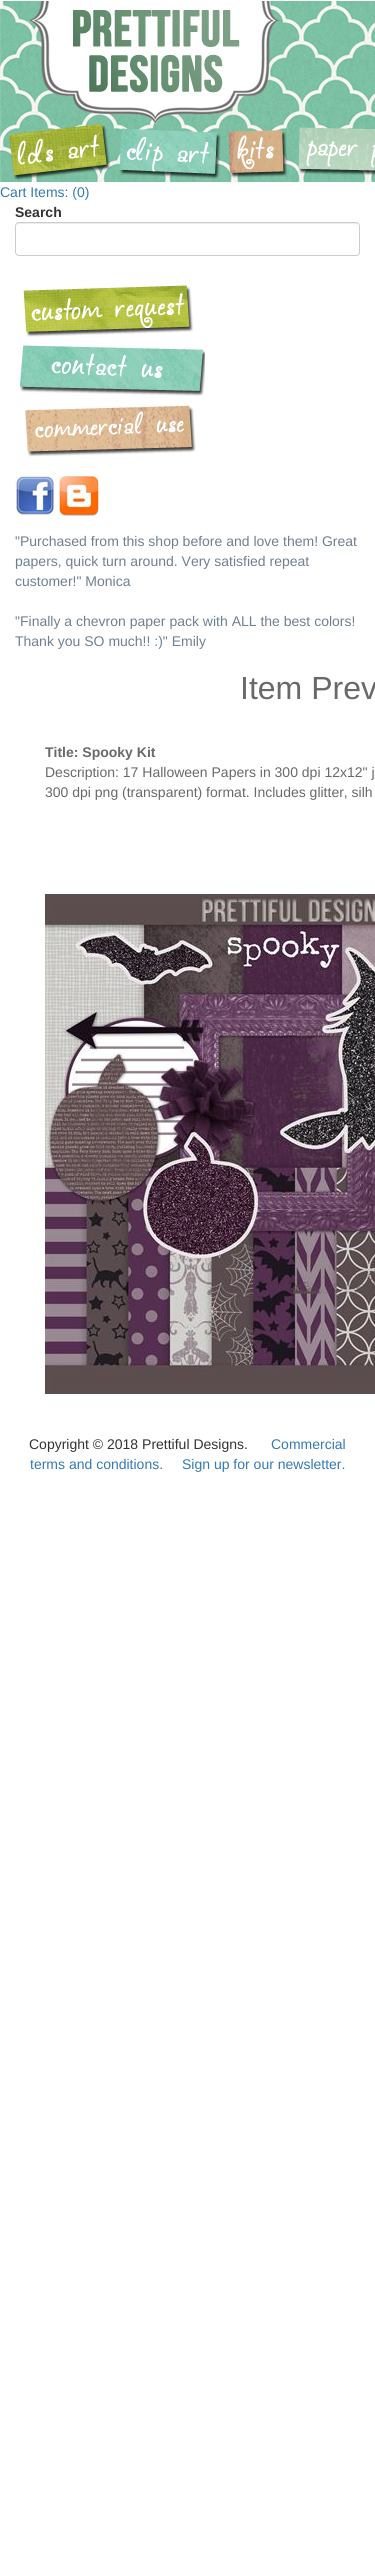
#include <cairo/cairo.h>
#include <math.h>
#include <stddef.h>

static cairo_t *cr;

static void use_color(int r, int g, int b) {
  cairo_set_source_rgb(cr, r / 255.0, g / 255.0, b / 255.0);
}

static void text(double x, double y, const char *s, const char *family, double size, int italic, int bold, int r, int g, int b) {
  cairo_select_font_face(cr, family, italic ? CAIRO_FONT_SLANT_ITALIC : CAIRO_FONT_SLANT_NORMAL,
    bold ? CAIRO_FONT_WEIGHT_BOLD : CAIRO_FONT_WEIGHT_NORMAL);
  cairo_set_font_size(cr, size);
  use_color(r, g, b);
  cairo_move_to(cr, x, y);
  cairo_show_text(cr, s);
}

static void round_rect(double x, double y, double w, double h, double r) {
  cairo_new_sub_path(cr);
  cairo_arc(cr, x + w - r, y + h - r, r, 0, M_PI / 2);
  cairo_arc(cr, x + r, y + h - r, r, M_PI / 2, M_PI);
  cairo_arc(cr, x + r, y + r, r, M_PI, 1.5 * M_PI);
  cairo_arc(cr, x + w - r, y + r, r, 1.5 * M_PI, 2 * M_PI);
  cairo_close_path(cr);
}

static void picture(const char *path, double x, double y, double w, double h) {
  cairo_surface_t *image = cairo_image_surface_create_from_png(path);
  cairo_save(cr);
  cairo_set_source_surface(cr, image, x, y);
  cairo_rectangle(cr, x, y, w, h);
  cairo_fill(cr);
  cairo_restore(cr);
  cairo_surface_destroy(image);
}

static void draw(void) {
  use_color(255, 255, 255);
  cairo_paint(cr);
  picture("img_01.png", 0, 1, 375, 181);
  use_color(236, 236, 236);
  cairo_new_path(cr);
  cairo_move_to(cr, 19, 224);
  cairo_line_to(cr, 356, 224);
  cairo_curve_to(cr, 358, 224, 359, 225, 359, 227);
  cairo_curve_to(cr, 359, 225, 358, 223, 356, 223);
  cairo_line_to(cr, 19, 223);
  cairo_curve_to(cr, 17, 223, 16, 225, 16, 227);
  cairo_curve_to(cr, 16, 225, 17, 224, 19, 224);
  cairo_close_path(cr);
  cairo_fill(cr);
  round_rect(15.5, 222.5, 344, 33, 3.5);
  use_color(204, 204, 204);
  cairo_set_line_width(cr, 1);
  cairo_stroke(cr);
  picture("img_02.png", 19, 285, 186, 172);
  picture("img_03.png", 15, 476, 40, 40);
  picture("img_04.png", 59, 476, 40, 40);
  picture("img_05.png", 45, 894, 330, 500);
  text(0, 197, "Cart Items: (0)", "Liberation Sans", 14, 0, 0, 51, 122, 183);
  text(15, 217, "Search", "Liberation Sans", 14, 0, 1, 51, 51, 51);
  text(15, 546, "\"Purchased from this shop before and love them! Great", "Liberation Sans", 14, 0, 0, 112, 128, 144);
  text(15, 566, "papers, quick turn around. Very satisfied repeat", "Liberation Sans", 14, 0, 0, 112, 128, 144);
  text(15, 586, "customer!\" Monica", "Liberation Sans", 14, 0, 0, 112, 128, 144);
  text(15, 626, "\"Finally a chevron paper pack with ALL the best colors!", "Liberation Sans", 14, 0, 0, 112, 128, 144);
  text(15, 646, "Thank you SO much!! :)\" Emily", "Liberation Sans", 14, 0, 0, 112, 128, 144);
  text(240, 699, "Item Prev", "Liberation Sans", 32, 0, 0, 105, 105, 105);
  text(45, 757, "Title: Spooky Kit", "Liberation Sans", 14, 0, 1, 105, 105, 105);
  text(45, 777, "Description: 17 Halloween Papers in 300 dpi 12x12\" j", "Liberation Sans", 14, 0, 0, 105, 105, 105);
  text(45, 797, "300 dpi png (transparent) format. Includes glitter, silh", "Liberation Sans", 14, 0, 0, 105, 105, 105);
  text(29, 1449, "Copyright © 2018 Prettiful Designs.", "Liberation Sans", 14, 0, 0, 51, 51, 51);
  text(271, 1449, "Commercial", "Liberation Sans", 14, 0, 0, 51, 122, 183);
  text(30, 1469, "terms and conditions.", "Liberation Sans", 14, 0, 0, 51, 122, 183);
  text(182, 1469, "Sign up for our newsletter.", "Liberation Sans", 14, 0, 0, 51, 122, 183);
}

int main(void) {
  cairo_surface_t *surface = cairo_image_surface_create(CAIRO_FORMAT_RGB24, 375, 2570);
  cr = cairo_create(surface);
  cairo_font_options_t *options = cairo_font_options_create();
  cairo_font_options_set_hint_metrics(options, CAIRO_HINT_METRICS_OFF);
  cairo_font_options_set_hint_style(options, CAIRO_HINT_STYLE_NONE);
  cairo_set_font_options(cr, options);
  cairo_set_miter_limit(cr, 4);
  draw();
  cairo_surface_write_to_png(surface, "out.png");
  cairo_font_options_destroy(options);
  cairo_destroy(cr);
  cairo_surface_destroy(surface);
  return 0;
}
